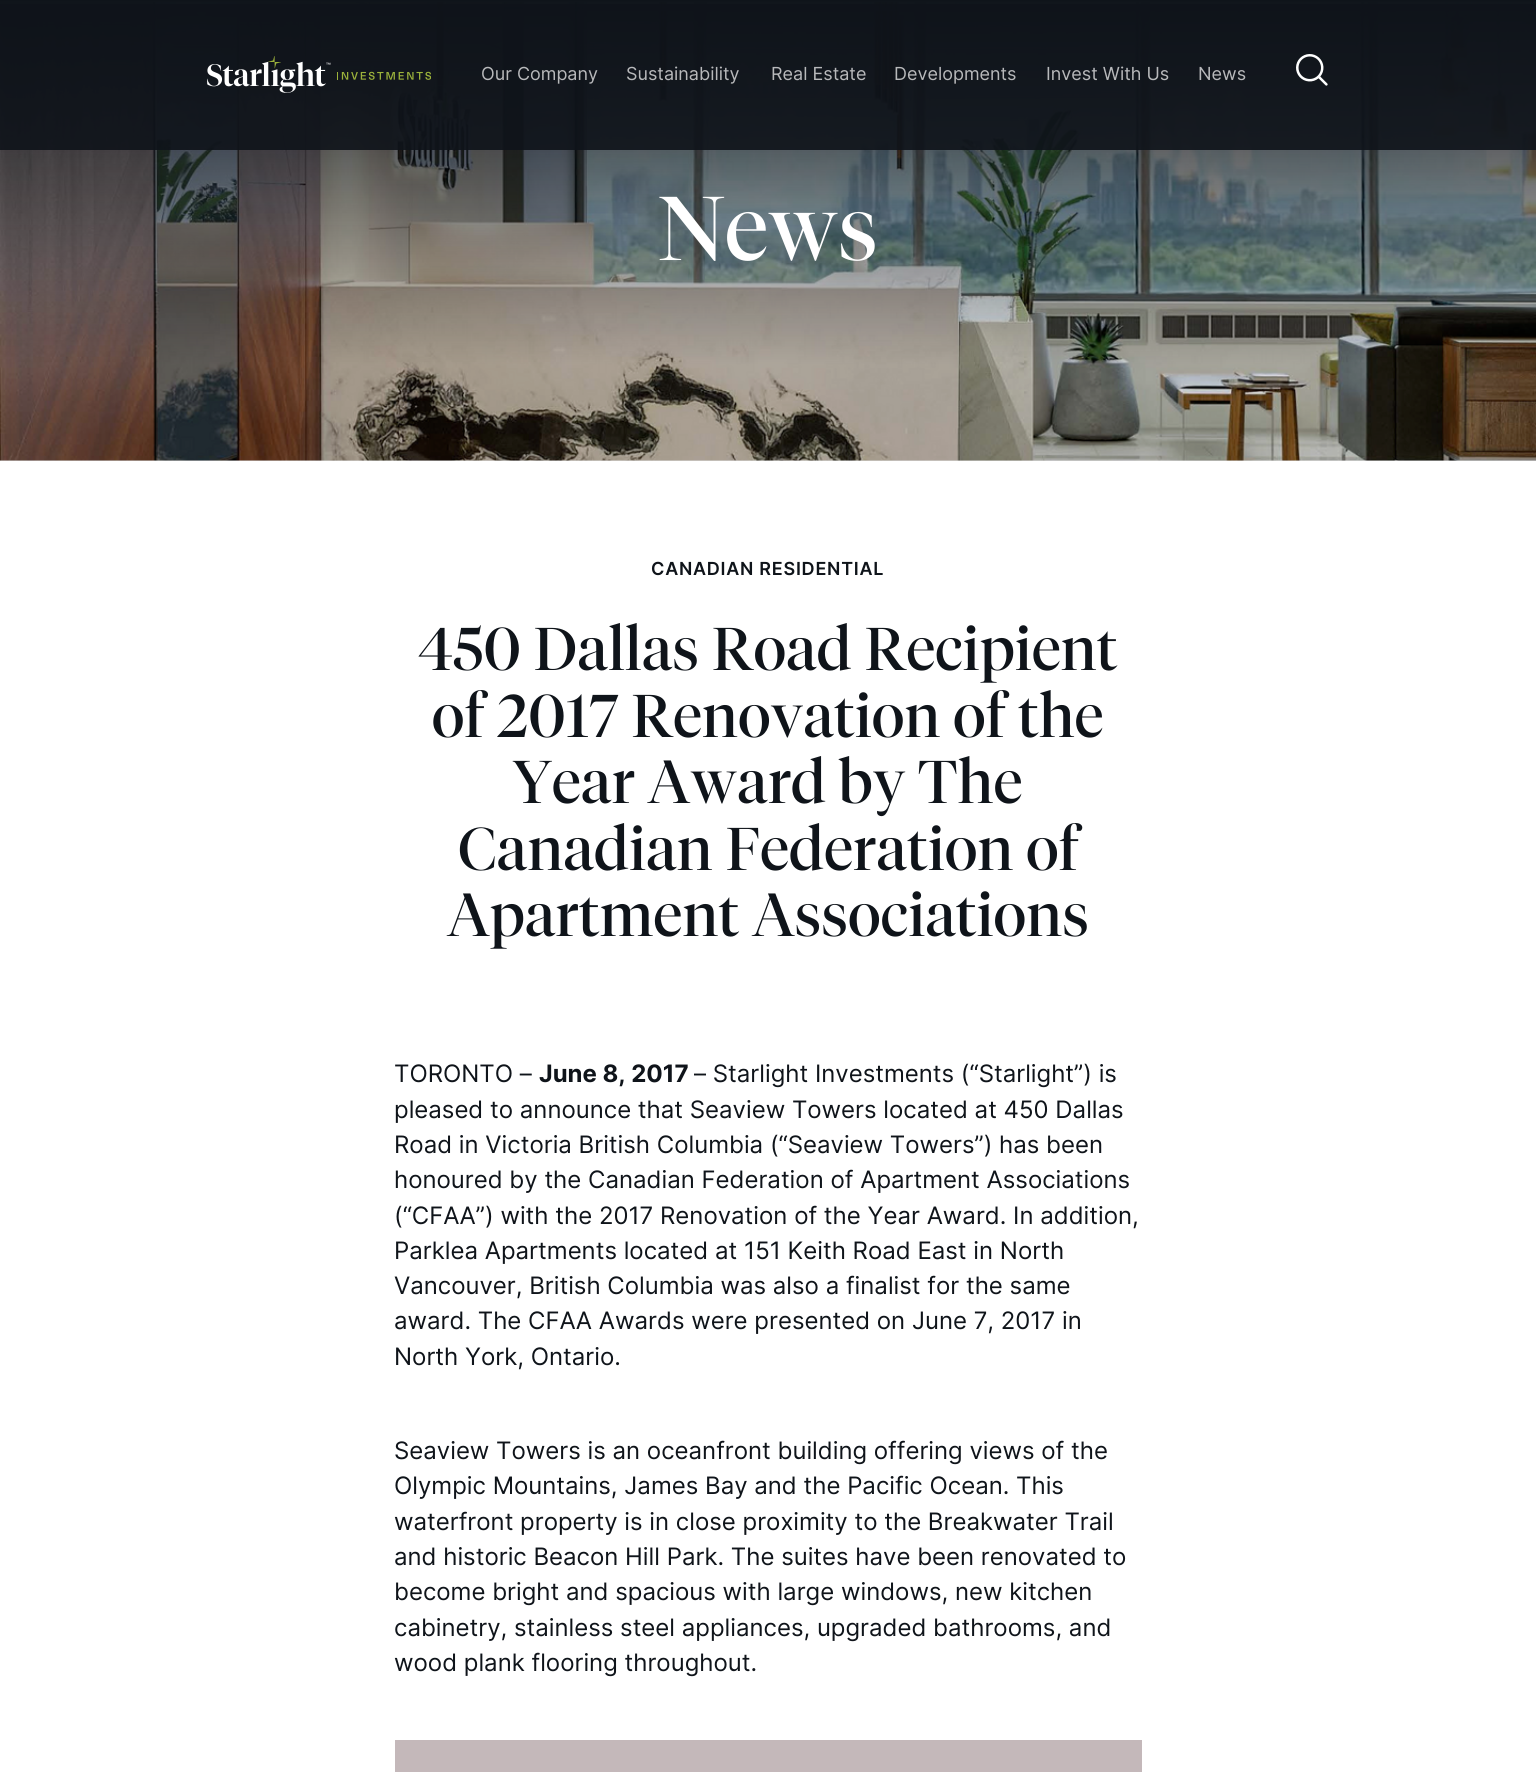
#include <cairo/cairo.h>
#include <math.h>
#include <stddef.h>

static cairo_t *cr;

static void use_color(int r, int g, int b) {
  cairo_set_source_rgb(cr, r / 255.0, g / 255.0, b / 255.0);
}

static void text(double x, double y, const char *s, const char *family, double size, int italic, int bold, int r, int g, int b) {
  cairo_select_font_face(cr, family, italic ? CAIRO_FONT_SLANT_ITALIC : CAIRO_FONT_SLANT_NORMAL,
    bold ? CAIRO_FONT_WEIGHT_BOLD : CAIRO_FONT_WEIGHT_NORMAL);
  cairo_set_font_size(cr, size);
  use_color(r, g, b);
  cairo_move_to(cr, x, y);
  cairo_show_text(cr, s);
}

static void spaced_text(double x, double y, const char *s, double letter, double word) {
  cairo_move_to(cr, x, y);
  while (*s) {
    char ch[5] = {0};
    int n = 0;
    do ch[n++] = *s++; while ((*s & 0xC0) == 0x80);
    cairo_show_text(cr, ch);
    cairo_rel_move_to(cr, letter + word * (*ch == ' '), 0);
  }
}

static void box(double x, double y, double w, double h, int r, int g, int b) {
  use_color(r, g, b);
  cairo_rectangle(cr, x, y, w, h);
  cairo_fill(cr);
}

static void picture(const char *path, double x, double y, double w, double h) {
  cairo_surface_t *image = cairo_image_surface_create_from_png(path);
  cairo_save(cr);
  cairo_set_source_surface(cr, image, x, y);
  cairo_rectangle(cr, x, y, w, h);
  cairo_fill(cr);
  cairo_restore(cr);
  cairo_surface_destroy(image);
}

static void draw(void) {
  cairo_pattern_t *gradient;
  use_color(255, 255, 255);
  cairo_paint(cr);
  picture("img_03.png", 0, 2, 1536, 459);
  gradient = cairo_pattern_create_linear(768, 0, 768, 461);
  cairo_pattern_add_color_stop_rgba(gradient, 0, 0.059, 0.078, 0.102, 1);
  cairo_pattern_add_color_stop_rgba(gradient, 0.79, 0, 0, 0, 0.13);
  cairo_set_source(cr, gradient);
  cairo_pattern_destroy(gradient);
  cairo_rectangle(cr, 0, 0, 1536, 461);
  cairo_fill(cr);
  cairo_set_source_rgba(cr, 0.059, 0.078, 0.102, 0.9);
  cairo_rectangle(cr, 0, 4, 1536, 146);
  cairo_fill(cr);
  picture("img_01.png", 207, 56, 224, 37);
  picture("img_02.png", 1296, 54, 32, 32);
  box(395, 1740, 747, 32, 196, 184, 186);
  text(481, 80, "Our Company", "Inter", 18, 0, 0, 184, 185, 187);
  text(626, 80, "Sustainability", "Inter", 18, 0, 0, 184, 185, 187);
  text(771, 80, "Real Estate", "Inter", 18, 0, 0, 184, 185, 187);
  text(894, 80, "Developments", "Inter", 18, 0, 0, 184, 185, 187);
  text(1046, 80, "Invest With Us", "Inter", 18, 0, 0, 184, 185, 187);
  text(1198, 80, "News", "Inter", 18, 0, 0, 184, 185, 187);
  cairo_select_font_face(cr, "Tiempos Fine", CAIRO_FONT_SLANT_NORMAL, CAIRO_FONT_WEIGHT_NORMAL);
  cairo_set_font_size(cr, 90);
  use_color(255, 255, 255);
  spaced_text(658, 260, "News", 0.4, 0);
  cairo_select_font_face(cr, "Inter SemiBold", CAIRO_FONT_SLANT_NORMAL, CAIRO_FONT_WEIGHT_NORMAL);
  cairo_set_font_size(cr, 18);
  use_color(15, 20, 26);
  spaced_text(651, 575, "CANADIAN RESIDENTIAL", 0.75, 0);
  cairo_select_font_face(cr, "Tiempos Fine", CAIRO_FONT_SLANT_NORMAL, CAIRO_FONT_WEIGHT_NORMAL);
  cairo_set_font_size(cr, 60);
  spaced_text(418, 670, "450 Dallas Road Recipient", 0.4, 0);
  spaced_text(432, 737, "of 2017 Renovation of the", 0.4, 0);
  spaced_text(513, 803, "Year Award by The", 0.4, 0);
  spaced_text(458, 870, "Canadian Federation of", 0.4, 0);
  spaced_text(447, 936, "Apartment Associations", 0.4, 0);
  text(394, 1082, "TORONTO –", "Inter", 24, 0, 0, 15, 20, 26);
  text(539, 1082, "June 8, 2017", "Inter", 24, 0, 1, 15, 20, 26);
  text(694, 1082, "– Starlight Investments (“Starlight”) is", "Inter", 24, 0, 0, 15, 20, 26);
  text(394, 1118, "pleased to announce that Seaview Towers located at 450 Dallas", "Inter", 24, 0, 0, 15, 20, 26);
  text(394, 1153, "Road in Victoria British Columbia (“Seaview Towers”) has been", "Inter", 24, 0, 0, 15, 20, 26);
  text(394, 1188, "honoured by the Canadian Federation of Apartment Associations", "Inter", 24, 0, 0, 15, 20, 26);
  text(394, 1224, "(“CFAA”) with the 2017 Renovation of the Year Award. In addition,", "Inter", 24, 0, 0, 15, 20, 26);
  text(394, 1259, "Parklea Apartments located at 151 Keith Road East in North", "Inter", 24, 0, 0, 15, 20, 26);
  text(394, 1294, "Vancouver, British Columbia was also a finalist for the same", "Inter", 24, 0, 0, 15, 20, 26);
  text(394, 1329, "award. The CFAA Awards were presented on June 7, 2017 in", "Inter", 24, 0, 0, 15, 20, 26);
  text(394, 1365, "North York, Ontario.", "Inter", 24, 0, 0, 15, 20, 26);
  text(394, 1459, "Seaview Towers is an oceanfront building offering views of the", "Inter", 24, 0, 0, 15, 20, 26);
  text(394, 1494, "Olympic Mountains, James Bay and the Pacific Ocean. This", "Inter", 24, 0, 0, 15, 20, 26);
  text(394, 1530, "waterfront property is in close proximity to the Breakwater Trail", "Inter", 24, 0, 0, 15, 20, 26);
  text(394, 1565, "and historic Beacon Hill Park. The suites have been renovated to", "Inter", 24, 0, 0, 15, 20, 26);
  text(394, 1600, "become bright and spacious with large windows, new kitchen", "Inter", 24, 0, 0, 15, 20, 26);
  text(394, 1636, "cabinetry, stainless steel appliances, upgraded bathrooms, and", "Inter", 24, 0, 0, 15, 20, 26);
  text(394, 1671, "wood plank flooring throughout.", "Inter", 24, 0, 0, 15, 20, 26);
}

int main(void) {
  cairo_surface_t *surface = cairo_image_surface_create(CAIRO_FORMAT_RGB24, 1536, 1772);
  cr = cairo_create(surface);
  cairo_font_options_t *options = cairo_font_options_create();
  cairo_font_options_set_hint_metrics(options, CAIRO_HINT_METRICS_OFF);
  cairo_font_options_set_hint_style(options, CAIRO_HINT_STYLE_NONE);
  cairo_set_font_options(cr, options);
  cairo_set_miter_limit(cr, 4);
  draw();
  cairo_surface_write_to_png(surface, "out.png");
  cairo_font_options_destroy(options);
  cairo_destroy(cr);
  cairo_surface_destroy(surface);
  return 0;
}
